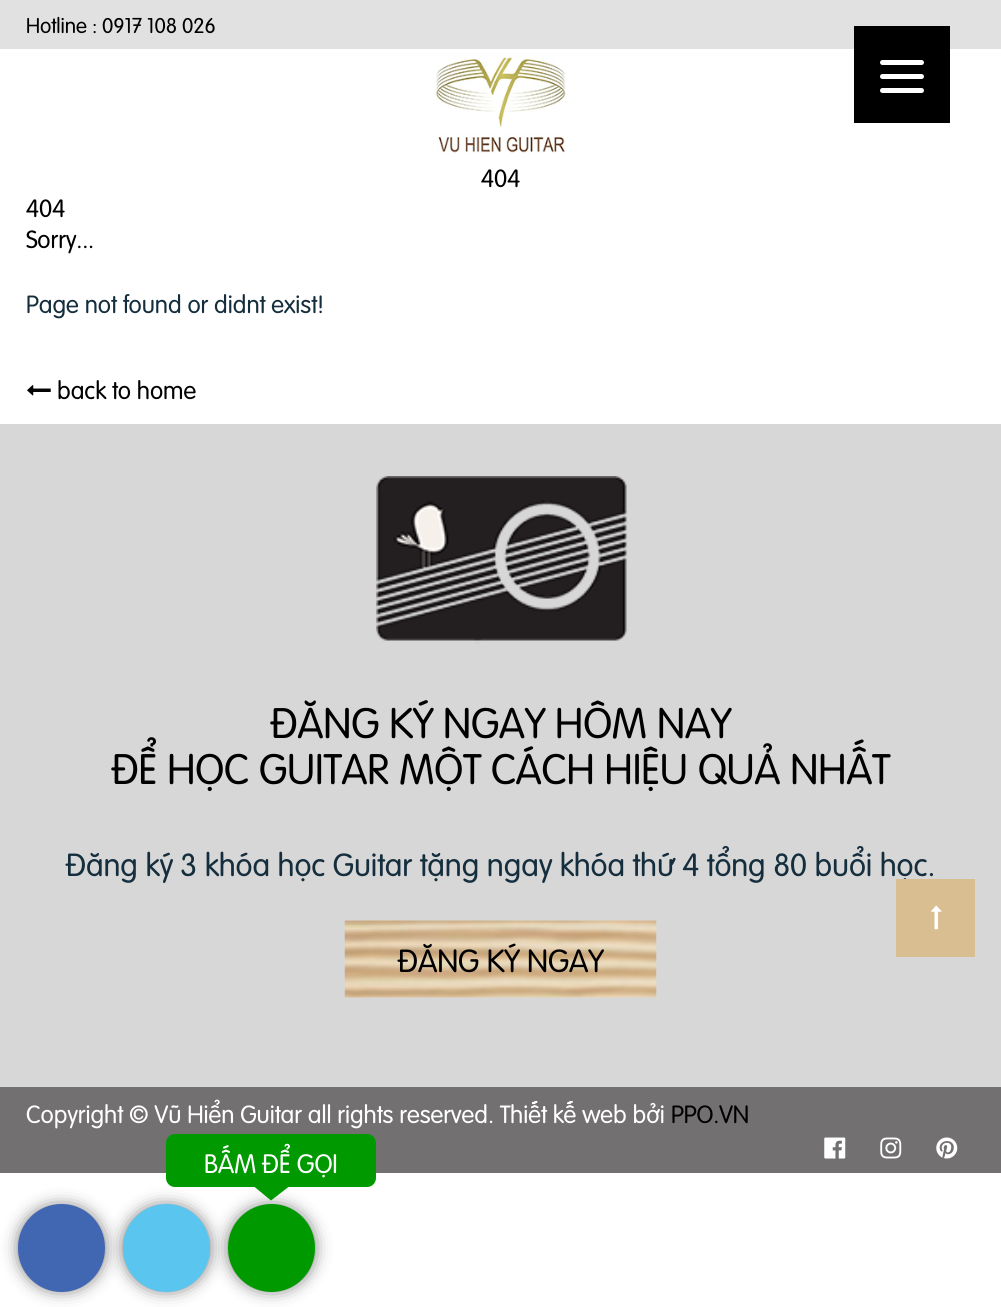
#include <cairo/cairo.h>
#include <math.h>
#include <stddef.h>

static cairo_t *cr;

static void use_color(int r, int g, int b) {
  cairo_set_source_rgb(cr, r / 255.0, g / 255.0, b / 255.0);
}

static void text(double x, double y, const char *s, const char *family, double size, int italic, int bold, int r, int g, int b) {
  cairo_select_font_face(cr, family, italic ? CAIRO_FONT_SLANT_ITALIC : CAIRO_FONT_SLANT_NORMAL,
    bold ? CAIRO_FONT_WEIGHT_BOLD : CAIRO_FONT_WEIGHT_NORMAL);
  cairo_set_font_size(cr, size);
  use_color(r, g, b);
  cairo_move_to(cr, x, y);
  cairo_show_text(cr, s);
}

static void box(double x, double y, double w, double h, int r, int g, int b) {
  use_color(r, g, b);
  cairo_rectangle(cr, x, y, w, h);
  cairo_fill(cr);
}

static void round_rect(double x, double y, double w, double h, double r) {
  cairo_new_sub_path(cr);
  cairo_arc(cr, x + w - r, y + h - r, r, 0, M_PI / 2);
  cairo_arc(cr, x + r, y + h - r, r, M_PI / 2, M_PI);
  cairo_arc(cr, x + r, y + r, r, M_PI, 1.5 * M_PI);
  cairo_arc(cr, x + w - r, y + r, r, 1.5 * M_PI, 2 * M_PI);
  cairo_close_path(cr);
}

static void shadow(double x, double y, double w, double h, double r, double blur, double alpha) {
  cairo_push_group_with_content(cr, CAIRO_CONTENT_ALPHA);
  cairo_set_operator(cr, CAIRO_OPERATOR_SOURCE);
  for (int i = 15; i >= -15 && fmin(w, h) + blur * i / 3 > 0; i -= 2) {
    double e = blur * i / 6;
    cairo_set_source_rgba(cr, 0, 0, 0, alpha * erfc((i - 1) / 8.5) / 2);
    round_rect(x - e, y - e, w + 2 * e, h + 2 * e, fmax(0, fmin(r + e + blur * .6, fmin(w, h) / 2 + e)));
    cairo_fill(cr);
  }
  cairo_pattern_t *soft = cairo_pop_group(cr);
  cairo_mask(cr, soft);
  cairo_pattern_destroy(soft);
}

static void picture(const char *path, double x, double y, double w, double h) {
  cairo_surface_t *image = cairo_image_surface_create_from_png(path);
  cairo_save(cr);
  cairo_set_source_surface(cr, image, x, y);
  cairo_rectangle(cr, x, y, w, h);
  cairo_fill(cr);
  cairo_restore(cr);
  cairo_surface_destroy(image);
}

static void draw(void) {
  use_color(255, 255, 255);
  cairo_paint(cr);
  box(0, 0, 1001, 49, 225, 225, 225);
  picture("img_01.png", 435, 57, 131, 97);
  box(854, 26, 96, 97, 0, 0, 0);
  use_color(255, 255, 255);
  round_rect(880, 74, 44, 5, 2.5);
  cairo_fill(cr);
  round_rect(880, 60, 44, 5, 2.5);
  cairo_fill(cr);
  round_rect(880, 88, 44, 5, 2.5);
  cairo_fill(cr);
  picture("img_02.png", 27, 385, 24, 11);
  box(0, 424, 1001, 663, 215, 215, 215);
  picture("img_03.png", 376, 476, 251, 168);
  picture("img_04.png", 344, 920, 313, 78);
  box(0, 1087, 1001, 86, 114, 112, 112);
  picture("img_05.png", 824, 1137, 22, 22);
  picture("img_06.png", 880, 1137, 22, 22);
  picture("img_07.png", 936, 1137, 22, 22);
  use_color(0, 0, 0);
  shadow(21, 1208, 81, 80, 40, 9, 0.7);
  use_color(66, 103, 178);
  round_rect(18, 1204, 87, 88, 43.5);
  cairo_fill(cr);
  use_color(0, 0, 0);
  shadow(126, 1208, 81, 80, 40, 9, 0.7);
  use_color(90, 197, 239);
  round_rect(123, 1204, 87, 88, 43.5);
  cairo_fill(cr);
  use_color(0, 0, 0);
  shadow(231, 1208, 81, 80, 40, 9, 0.7);
  use_color(0, 153, 0);
  round_rect(166, 1134, 210, 53, 9);
  cairo_fill(cr);
  cairo_new_path(cr);
  cairo_move_to(cr, 254, 1186.5);
  cairo_line_to(cr, 289, 1186.5);
  cairo_line_to(cr, 271, 1200.5);
  cairo_close_path(cr);
  cairo_fill(cr);
  round_rect(228, 1204, 87, 88, 43.5);
  cairo_fill(cr);
  text(26, 33, "Hotline :", "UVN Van", 21, 0, 0, 0, 0, 0);
  text(102, 33, "0917 108 026", "UVN Van", 21, 0, 0, 0, 0, 0);
  text(481, 187, "404", "UVN Van", 24.5, 0, 0, 0, 0, 0);
  text(26, 217, "404", "UVN Van", 24.5, 0, 0, 0, 0, 0);
  text(26, 248, "Sorry...", "UVN Van", 24.5, 0, 0, 0, 0, 0);
  text(26, 313, "Page not found or didnt exist!", "UVN Van", 24.5, 0, 0, 21, 46, 61);
  text(57, 399, "back to home", "UVN Van", 24.5, 0, 0, 0, 0, 0);
  text(271, 738, "ĐĂNG KÝ NGAY HÔM NAY", "UVN Van", 42, 0, 0, 0, 0, 0);
  text(112, 784, "ĐỂ HỌC GUITAR MỘT CÁCH HIỆU QUẢ NHẤT", "UVN Van", 42, 0, 0, 0, 0, 0);
  text(66, 876, "Đăng ký 3 khóa học Guitar tặng ngay khóa thứ 4 tổng 80 buổi học.", "UVN Van", 31.5, 0, 0, 21, 46, 61);
  text(398, 972, "ĐĂNG KÝ NGAY", "UVN Van", 31.5, 0, 0, 0, 0, 0);
  text(26, 1123, "Copyright © Vũ Hiển Guitar all rights reserved. Thiết kế web bởi", "UVN Van", 24.5, 0, 0, 255, 255, 255);
  text(671, 1123, "PPO.VN", "UVN Van", 24.5, 0, 0, 0, 0, 0);
  box(896, 879, 79, 78, 217, 190, 145);
  picture("img_08.png", 931, 905, 11, 25);
  text(204, 1173, "BẤM ĐỂ GỌI", "UVN Van", 26.25, 0, 0, 255, 255, 255);
}

int main(void) {
  cairo_surface_t *surface = cairo_image_surface_create(CAIRO_FORMAT_RGB24, 1001, 1307);
  cr = cairo_create(surface);
  cairo_font_options_t *options = cairo_font_options_create();
  cairo_font_options_set_hint_metrics(options, CAIRO_HINT_METRICS_OFF);
  cairo_font_options_set_hint_style(options, CAIRO_HINT_STYLE_NONE);
  cairo_set_font_options(cr, options);
  cairo_set_miter_limit(cr, 4);
  draw();
  cairo_surface_write_to_png(surface, "out.png");
  cairo_font_options_destroy(options);
  cairo_destroy(cr);
  cairo_surface_destroy(surface);
  return 0;
}
